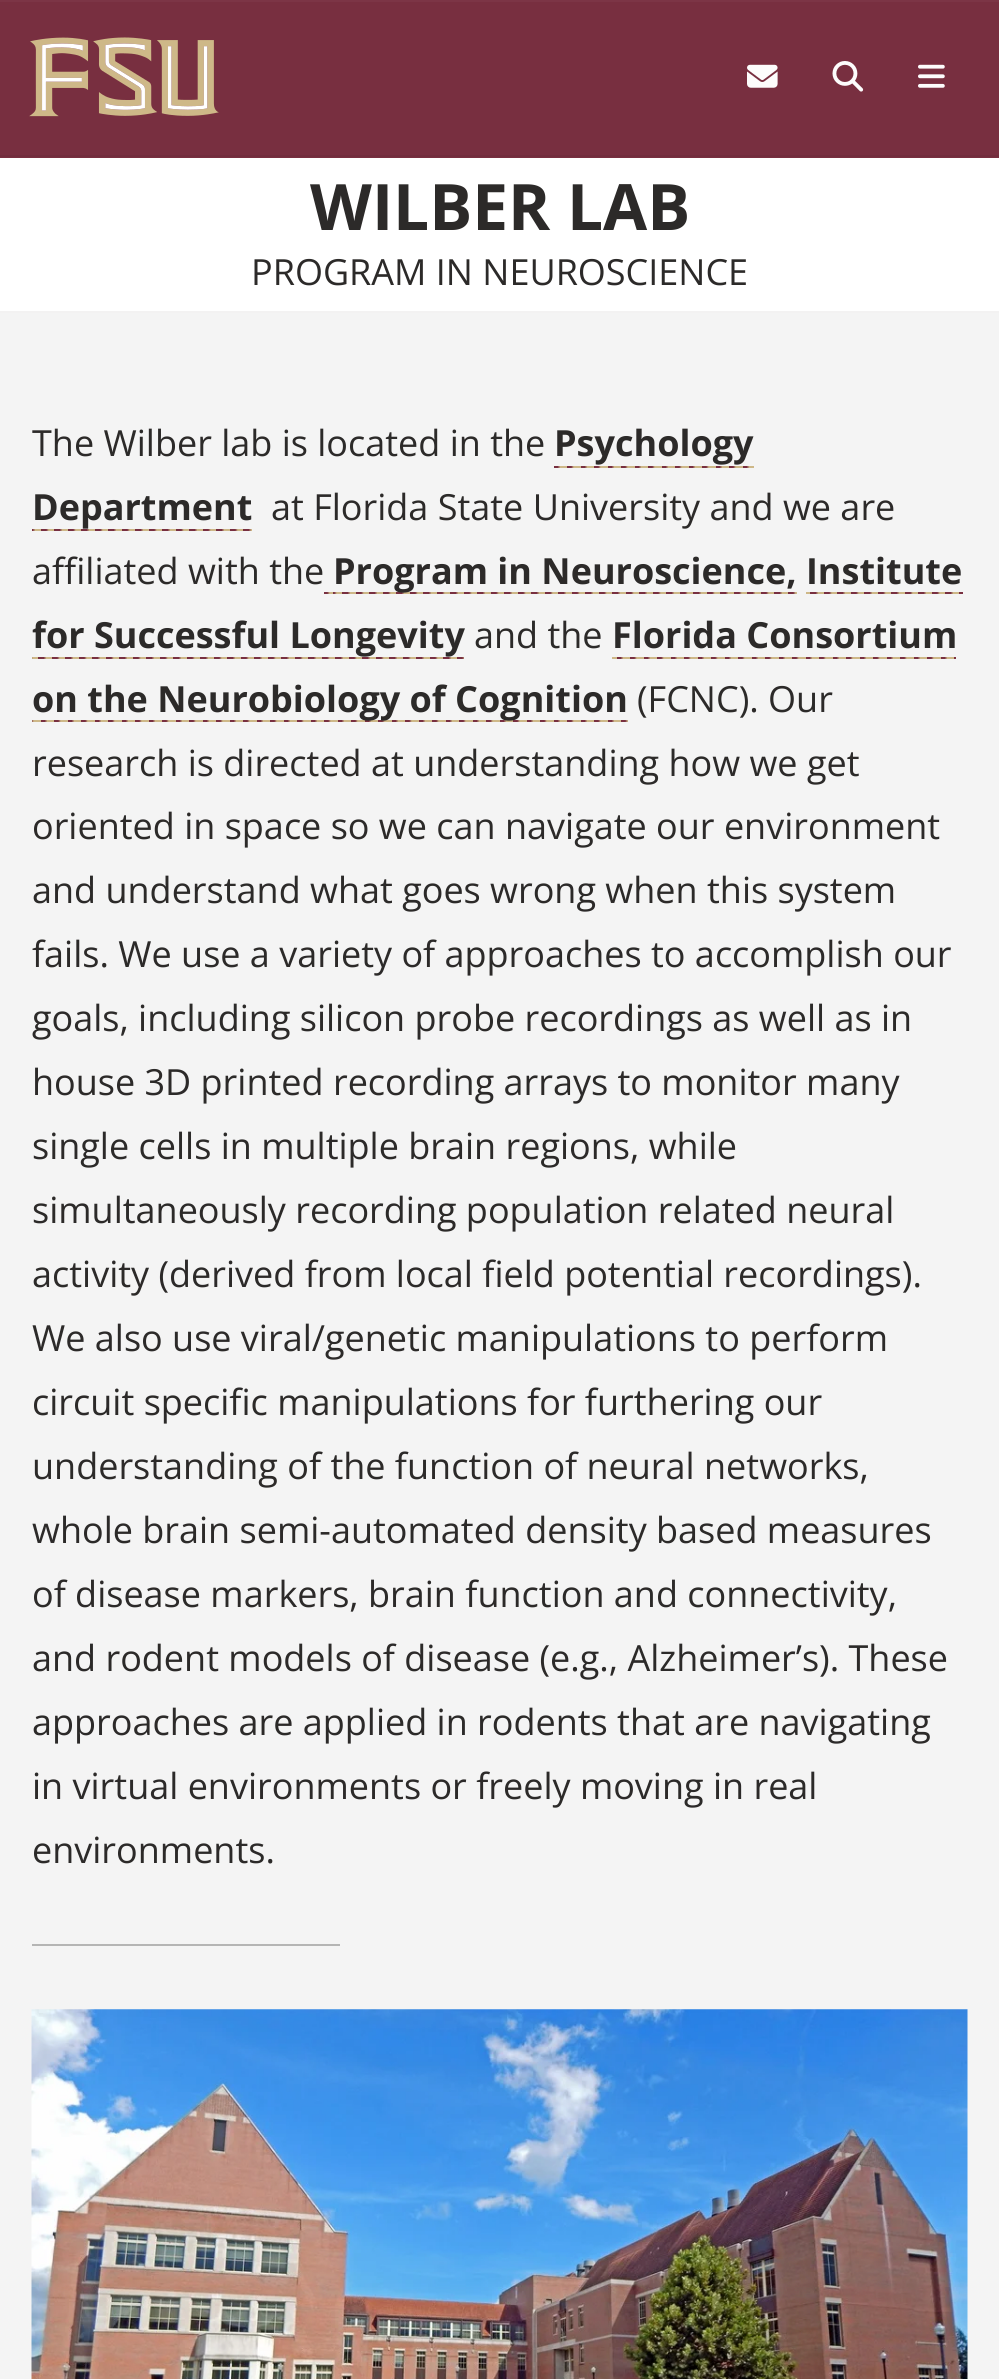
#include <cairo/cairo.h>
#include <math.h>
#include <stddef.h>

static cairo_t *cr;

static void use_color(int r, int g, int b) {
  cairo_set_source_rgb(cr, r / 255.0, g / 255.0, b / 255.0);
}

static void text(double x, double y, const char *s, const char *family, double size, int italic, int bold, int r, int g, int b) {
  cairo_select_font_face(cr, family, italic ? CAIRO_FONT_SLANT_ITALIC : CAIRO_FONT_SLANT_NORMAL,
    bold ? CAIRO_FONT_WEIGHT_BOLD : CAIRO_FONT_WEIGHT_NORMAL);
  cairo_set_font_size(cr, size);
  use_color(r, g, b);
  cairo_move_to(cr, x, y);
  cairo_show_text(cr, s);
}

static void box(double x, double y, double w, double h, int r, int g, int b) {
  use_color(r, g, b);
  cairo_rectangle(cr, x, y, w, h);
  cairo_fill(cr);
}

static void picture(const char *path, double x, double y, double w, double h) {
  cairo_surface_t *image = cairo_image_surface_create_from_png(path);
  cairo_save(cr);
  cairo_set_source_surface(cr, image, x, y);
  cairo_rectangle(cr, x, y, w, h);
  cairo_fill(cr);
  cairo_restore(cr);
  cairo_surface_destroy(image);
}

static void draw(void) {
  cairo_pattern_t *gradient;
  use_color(120, 47, 64);
  cairo_paint(cr);
  box(0, 0, 999, 2, 124, 53, 70);
  box(0, 155, 999, 2, 114, 45, 61);
  picture("img_01.png", 29, 37, 190, 80);
  picture("img_02.png", 747, 64, 31, 24);
  picture("img_03.png", 832, 61, 32, 31);
  picture("img_04.png", 918, 64, 27, 24);
  box(0, 158, 999, 153, 255, 255, 255);
  box(0, 311, 999, 2, 243, 242, 242);
  box(0, 313, 999, 2066, 244, 244, 244);
  gradient = cairo_pattern_create_linear(552, 467, 566, 467);
  cairo_pattern_add_color_stop_rgba(gradient, 0.4, 0.471, 0.184, 0.251, 1);
  cairo_pattern_add_color_stop_rgba(gradient, 0.6, 0.808, 0.722, 0.533, 1);
  cairo_set_source(cr, gradient);
  cairo_pattern_destroy(gradient);
  cairo_rectangle(cr, 554, 466, 13, 2);
  cairo_fill(cr);
  gradient = cairo_pattern_create_linear(566, 467, 579, 467);
  cairo_pattern_add_color_stop_rgba(gradient, 0.4, 0.471, 0.184, 0.251, 1);
  cairo_pattern_add_color_stop_rgba(gradient, 0.6, 0.808, 0.722, 0.533, 1);
  cairo_set_source(cr, gradient);
  cairo_pattern_destroy(gradient);
  cairo_rectangle(cr, 567, 466, 14, 2);
  cairo_fill(cr);
  gradient = cairo_pattern_create_linear(579, 467, 593, 467);
  cairo_pattern_add_color_stop_rgba(gradient, 0.4, 0.471, 0.184, 0.251, 1);
  cairo_pattern_add_color_stop_rgba(gradient, 0.6, 0.808, 0.722, 0.533, 1);
  cairo_set_source(cr, gradient);
  cairo_pattern_destroy(gradient);
  cairo_rectangle(cr, 581, 466, 13, 2);
  cairo_fill(cr);
  gradient = cairo_pattern_create_linear(593, 467, 606, 467);
  cairo_pattern_add_color_stop_rgba(gradient, 0.4, 0.471, 0.184, 0.251, 1);
  cairo_pattern_add_color_stop_rgba(gradient, 0.6, 0.808, 0.722, 0.533, 1);
  cairo_set_source(cr, gradient);
  cairo_pattern_destroy(gradient);
  cairo_rectangle(cr, 594, 466, 14, 2);
  cairo_fill(cr);
  gradient = cairo_pattern_create_linear(606, 467, 620, 467);
  cairo_pattern_add_color_stop_rgba(gradient, 0.4, 0.471, 0.184, 0.251, 1);
  cairo_pattern_add_color_stop_rgba(gradient, 0.6, 0.808, 0.722, 0.533, 1);
  cairo_set_source(cr, gradient);
  cairo_pattern_destroy(gradient);
  cairo_rectangle(cr, 608, 466, 13, 2);
  cairo_fill(cr);
  gradient = cairo_pattern_create_linear(620, 467, 633, 467);
  cairo_pattern_add_color_stop_rgba(gradient, 0.4, 0.471, 0.184, 0.251, 1);
  cairo_pattern_add_color_stop_rgba(gradient, 0.6, 0.808, 0.722, 0.533, 1);
  cairo_set_source(cr, gradient);
  cairo_pattern_destroy(gradient);
  cairo_rectangle(cr, 621, 466, 14, 2);
  cairo_fill(cr);
  gradient = cairo_pattern_create_linear(633, 467, 647, 467);
  cairo_pattern_add_color_stop_rgba(gradient, 0.4, 0.471, 0.184, 0.251, 1);
  cairo_pattern_add_color_stop_rgba(gradient, 0.6, 0.808, 0.722, 0.533, 1);
  cairo_set_source(cr, gradient);
  cairo_pattern_destroy(gradient);
  cairo_rectangle(cr, 635, 466, 13, 2);
  cairo_fill(cr);
  gradient = cairo_pattern_create_linear(647, 467, 660, 467);
  cairo_pattern_add_color_stop_rgba(gradient, 0.4, 0.471, 0.184, 0.251, 1);
  cairo_pattern_add_color_stop_rgba(gradient, 0.6, 0.808, 0.722, 0.533, 1);
  cairo_set_source(cr, gradient);
  cairo_pattern_destroy(gradient);
  cairo_rectangle(cr, 648, 466, 14, 2);
  cairo_fill(cr);
  gradient = cairo_pattern_create_linear(660, 467, 674, 467);
  cairo_pattern_add_color_stop_rgba(gradient, 0.4, 0.471, 0.184, 0.251, 1);
  cairo_pattern_add_color_stop_rgba(gradient, 0.6, 0.808, 0.722, 0.533, 1);
  cairo_set_source(cr, gradient);
  cairo_pattern_destroy(gradient);
  cairo_rectangle(cr, 662, 466, 13, 2);
  cairo_fill(cr);
  gradient = cairo_pattern_create_linear(674, 467, 687, 467);
  cairo_pattern_add_color_stop_rgba(gradient, 0.4, 0.471, 0.184, 0.251, 1);
  cairo_pattern_add_color_stop_rgba(gradient, 0.6, 0.808, 0.722, 0.533, 1);
  cairo_set_source(cr, gradient);
  cairo_pattern_destroy(gradient);
  cairo_rectangle(cr, 675, 466, 14, 2);
  cairo_fill(cr);
  gradient = cairo_pattern_create_linear(687, 467, 701, 467);
  cairo_pattern_add_color_stop_rgba(gradient, 0.4, 0.471, 0.184, 0.251, 1);
  cairo_pattern_add_color_stop_rgba(gradient, 0.6, 0.808, 0.722, 0.533, 1);
  cairo_set_source(cr, gradient);
  cairo_pattern_destroy(gradient);
  cairo_rectangle(cr, 689, 466, 13, 2);
  cairo_fill(cr);
  gradient = cairo_pattern_create_linear(701, 467, 714, 467);
  cairo_pattern_add_color_stop_rgba(gradient, 0.4, 0.471, 0.184, 0.251, 1);
  cairo_pattern_add_color_stop_rgba(gradient, 0.6, 0.808, 0.722, 0.533, 1);
  cairo_set_source(cr, gradient);
  cairo_pattern_destroy(gradient);
  cairo_rectangle(cr, 702, 466, 14, 2);
  cairo_fill(cr);
  gradient = cairo_pattern_create_linear(714, 467, 728, 467);
  cairo_pattern_add_color_stop_rgba(gradient, 0.4, 0.471, 0.184, 0.251, 1);
  cairo_pattern_add_color_stop_rgba(gradient, 0.6, 0.808, 0.722, 0.533, 1);
  cairo_set_source(cr, gradient);
  cairo_pattern_destroy(gradient);
  cairo_rectangle(cr, 716, 466, 13, 2);
  cairo_fill(cr);
  gradient = cairo_pattern_create_linear(728, 467, 741, 467);
  cairo_pattern_add_color_stop_rgba(gradient, 0.4, 0.471, 0.184, 0.251, 1);
  cairo_pattern_add_color_stop_rgba(gradient, 0.6, 0.808, 0.722, 0.533, 1);
  cairo_set_source(cr, gradient);
  cairo_pattern_destroy(gradient);
  cairo_rectangle(cr, 729, 466, 14, 2);
  cairo_fill(cr);
  gradient = cairo_pattern_create_linear(741, 467, 755, 467);
  cairo_pattern_add_color_stop_rgba(gradient, 0.4, 0.471, 0.184, 0.251, 1);
  cairo_pattern_add_color_stop_rgba(gradient, 0.6, 0.808, 0.722, 0.533, 1);
  cairo_set_source(cr, gradient);
  cairo_pattern_destroy(gradient);
  cairo_rectangle(cr, 743, 466, 11, 2);
  cairo_fill(cr);
  gradient = cairo_pattern_create_linear(27, 530, 41, 530);
  cairo_pattern_add_color_stop_rgba(gradient, 0.4, 0.471, 0.184, 0.251, 1);
  cairo_pattern_add_color_stop_rgba(gradient, 0.6, 0.808, 0.722, 0.533, 1);
  cairo_set_source(cr, gradient);
  cairo_pattern_destroy(gradient);
  cairo_rectangle(cr, 32, 529, 9, 2);
  cairo_fill(cr);
  gradient = cairo_pattern_create_linear(41, 530, 54, 530);
  cairo_pattern_add_color_stop_rgba(gradient, 0.4, 0.471, 0.184, 0.251, 1);
  cairo_pattern_add_color_stop_rgba(gradient, 0.6, 0.808, 0.722, 0.533, 1);
  cairo_set_source(cr, gradient);
  cairo_pattern_destroy(gradient);
  cairo_rectangle(cr, 41, 529, 13, 2);
  cairo_fill(cr);
  gradient = cairo_pattern_create_linear(54, 530, 68, 530);
  cairo_pattern_add_color_stop_rgba(gradient, 0.4, 0.471, 0.184, 0.251, 1);
  cairo_pattern_add_color_stop_rgba(gradient, 0.6, 0.808, 0.722, 0.533, 1);
  cairo_set_source(cr, gradient);
  cairo_pattern_destroy(gradient);
  cairo_rectangle(cr, 54, 529, 14, 2);
  cairo_fill(cr);
  gradient = cairo_pattern_create_linear(68, 530, 81, 530);
  cairo_pattern_add_color_stop_rgba(gradient, 0.4, 0.471, 0.184, 0.251, 1);
  cairo_pattern_add_color_stop_rgba(gradient, 0.6, 0.808, 0.722, 0.533, 1);
  cairo_set_source(cr, gradient);
  cairo_pattern_destroy(gradient);
  cairo_rectangle(cr, 68, 529, 13, 2);
  cairo_fill(cr);
  gradient = cairo_pattern_create_linear(81, 530, 95, 530);
  cairo_pattern_add_color_stop_rgba(gradient, 0.4, 0.471, 0.184, 0.251, 1);
  cairo_pattern_add_color_stop_rgba(gradient, 0.6, 0.808, 0.722, 0.533, 1);
  cairo_set_source(cr, gradient);
  cairo_pattern_destroy(gradient);
  cairo_rectangle(cr, 81, 529, 14, 2);
  cairo_fill(cr);
  gradient = cairo_pattern_create_linear(95, 530, 108, 530);
  cairo_pattern_add_color_stop_rgba(gradient, 0.4, 0.471, 0.184, 0.251, 1);
  cairo_pattern_add_color_stop_rgba(gradient, 0.6, 0.808, 0.722, 0.533, 1);
  cairo_set_source(cr, gradient);
  cairo_pattern_destroy(gradient);
  cairo_rectangle(cr, 95, 529, 13, 2);
  cairo_fill(cr);
  gradient = cairo_pattern_create_linear(108, 530, 122, 530);
  cairo_pattern_add_color_stop_rgba(gradient, 0.4, 0.471, 0.184, 0.251, 1);
  cairo_pattern_add_color_stop_rgba(gradient, 0.6, 0.808, 0.722, 0.533, 1);
  cairo_set_source(cr, gradient);
  cairo_pattern_destroy(gradient);
  cairo_rectangle(cr, 108, 529, 14, 2);
  cairo_fill(cr);
  gradient = cairo_pattern_create_linear(122, 530, 135, 530);
  cairo_pattern_add_color_stop_rgba(gradient, 0.4, 0.471, 0.184, 0.251, 1);
  cairo_pattern_add_color_stop_rgba(gradient, 0.6, 0.808, 0.722, 0.533, 1);
  cairo_set_source(cr, gradient);
  cairo_pattern_destroy(gradient);
  cairo_rectangle(cr, 122, 529, 13, 2);
  cairo_fill(cr);
  gradient = cairo_pattern_create_linear(135, 530, 149, 530);
  cairo_pattern_add_color_stop_rgba(gradient, 0.4, 0.471, 0.184, 0.251, 1);
  cairo_pattern_add_color_stop_rgba(gradient, 0.6, 0.808, 0.722, 0.533, 1);
  cairo_set_source(cr, gradient);
  cairo_pattern_destroy(gradient);
  cairo_rectangle(cr, 135, 529, 14, 2);
  cairo_fill(cr);
  gradient = cairo_pattern_create_linear(149, 530, 162, 530);
  cairo_pattern_add_color_stop_rgba(gradient, 0.4, 0.471, 0.184, 0.251, 1);
  cairo_pattern_add_color_stop_rgba(gradient, 0.6, 0.808, 0.722, 0.533, 1);
  cairo_set_source(cr, gradient);
  cairo_pattern_destroy(gradient);
  cairo_rectangle(cr, 149, 529, 13, 2);
  cairo_fill(cr);
  gradient = cairo_pattern_create_linear(162, 530, 176, 530);
  cairo_pattern_add_color_stop_rgba(gradient, 0.4, 0.471, 0.184, 0.251, 1);
  cairo_pattern_add_color_stop_rgba(gradient, 0.6, 0.808, 0.722, 0.533, 1);
  cairo_set_source(cr, gradient);
  cairo_pattern_destroy(gradient);
  cairo_rectangle(cr, 162, 529, 14, 2);
  cairo_fill(cr);
  gradient = cairo_pattern_create_linear(176, 530, 189, 530);
  cairo_pattern_add_color_stop_rgba(gradient, 0.4, 0.471, 0.184, 0.251, 1);
  cairo_pattern_add_color_stop_rgba(gradient, 0.6, 0.808, 0.722, 0.533, 1);
  cairo_set_source(cr, gradient);
  cairo_pattern_destroy(gradient);
  cairo_rectangle(cr, 176, 529, 13, 2);
  cairo_fill(cr);
  gradient = cairo_pattern_create_linear(189, 530, 203, 530);
  cairo_pattern_add_color_stop_rgba(gradient, 0.4, 0.471, 0.184, 0.251, 1);
  cairo_pattern_add_color_stop_rgba(gradient, 0.6, 0.808, 0.722, 0.533, 1);
  cairo_set_source(cr, gradient);
  cairo_pattern_destroy(gradient);
  cairo_rectangle(cr, 189, 529, 14, 2);
  cairo_fill(cr);
  gradient = cairo_pattern_create_linear(203, 530, 216, 530);
  cairo_pattern_add_color_stop_rgba(gradient, 0.4, 0.471, 0.184, 0.251, 1);
  cairo_pattern_add_color_stop_rgba(gradient, 0.6, 0.808, 0.722, 0.533, 1);
  cairo_set_source(cr, gradient);
  cairo_pattern_destroy(gradient);
  cairo_rectangle(cr, 203, 529, 13, 2);
  cairo_fill(cr);
  gradient = cairo_pattern_create_linear(216, 530, 230, 530);
  cairo_pattern_add_color_stop_rgba(gradient, 0.4, 0.471, 0.184, 0.251, 1);
  cairo_pattern_add_color_stop_rgba(gradient, 0.6, 0.808, 0.722, 0.533, 1);
  cairo_set_source(cr, gradient);
  cairo_pattern_destroy(gradient);
  cairo_rectangle(cr, 216, 529, 14, 2);
  cairo_fill(cr);
  gradient = cairo_pattern_create_linear(230, 530, 243, 530);
  cairo_pattern_add_color_stop_rgba(gradient, 0.4, 0.471, 0.184, 0.251, 1);
  cairo_pattern_add_color_stop_rgba(gradient, 0.6, 0.808, 0.722, 0.533, 1);
  cairo_set_source(cr, gradient);
  cairo_pattern_destroy(gradient);
  cairo_rectangle(cr, 230, 529, 13, 2);
  cairo_fill(cr);
  gradient = cairo_pattern_create_linear(243, 530, 257, 530);
  cairo_pattern_add_color_stop_rgba(gradient, 0.4, 0.471, 0.184, 0.251, 1);
  cairo_pattern_add_color_stop_rgba(gradient, 0.6, 0.808, 0.722, 0.533, 1);
  cairo_set_source(cr, gradient);
  cairo_pattern_destroy(gradient);
  cairo_rectangle(cr, 243, 529, 9, 2);
  cairo_fill(cr);
  gradient = cairo_pattern_create_linear(322, 593, 335, 593);
  cairo_pattern_add_color_stop_rgba(gradient, 0.4, 0.471, 0.184, 0.251, 1);
  cairo_pattern_add_color_stop_rgba(gradient, 0.6, 0.808, 0.722, 0.533, 1);
  cairo_set_source(cr, gradient);
  cairo_pattern_destroy(gradient);
  cairo_rectangle(cr, 324, 592, 9, 2);
  cairo_fill(cr);
  picture("img_05.png", 333, 592, 464, 2);
  picture("img_06.png", 32, 657, 432, 2);
  picture("img_07.png", 612, 657, 344, 2);
  picture("img_08.png", 32, 720, 596, 2);
  box(32, 1944, 308, 2, 181, 181, 180);
  picture("img_09.png", 31, 2009, 937, 370);
  text(310, 230, "WILBER LAB", "Open Sans", 64, 0, 1, 44, 42, 41);
  text(251, 285, "PROGRAM IN NEUROSCIENCE", "Open Sans", 36, 0, 0, 44, 42, 41);
  text(32, 456, "The Wilber lab is located in the", "Open Sans", 36, 0, 0, 44, 42, 41);
  text(554, 456, "Psychology", "Open Sans", 36, 0, 1, 44, 42, 41);
  text(32, 520, "Department", "Open Sans", 36, 0, 1, 44, 42, 41);
  text(271, 520, "at Florida State University and we are", "Open Sans", 36, 0, 0, 44, 42, 41);
  text(32, 584, "affiliated with the", "Open Sans", 36, 0, 0, 44, 42, 41);
  text(333, 584, "Program in Neuroscience, Institute", "Open Sans", 36, 0, 1, 44, 42, 41);
  text(32, 648, "for Successful Longevity", "Open Sans", 36, 0, 1, 44, 42, 41);
  gradient = cairo_pattern_create_linear(797, 593, 810, 593);
  cairo_pattern_add_color_stop_rgba(gradient, 0.4, 0.471, 0.184, 0.251, 1);
  cairo_pattern_add_color_stop_rgba(gradient, 0.6, 0.808, 0.722, 0.533, 1);
  cairo_set_source(cr, gradient);
  cairo_pattern_destroy(gradient);
  cairo_rectangle(cr, 806, 592, 4, 2);
  cairo_fill(cr);
  gradient = cairo_pattern_create_linear(810, 593, 824, 593);
  cairo_pattern_add_color_stop_rgba(gradient, 0.4, 0.471, 0.184, 0.251, 1);
  cairo_pattern_add_color_stop_rgba(gradient, 0.6, 0.808, 0.722, 0.533, 1);
  cairo_set_source(cr, gradient);
  cairo_pattern_destroy(gradient);
  cairo_rectangle(cr, 810, 592, 14, 2);
  cairo_fill(cr);
  gradient = cairo_pattern_create_linear(824, 593, 837, 593);
  cairo_pattern_add_color_stop_rgba(gradient, 0.4, 0.471, 0.184, 0.251, 1);
  cairo_pattern_add_color_stop_rgba(gradient, 0.6, 0.808, 0.722, 0.533, 1);
  cairo_set_source(cr, gradient);
  cairo_pattern_destroy(gradient);
  cairo_rectangle(cr, 824, 592, 13, 2);
  cairo_fill(cr);
  gradient = cairo_pattern_create_linear(837, 593, 851, 593);
  cairo_pattern_add_color_stop_rgba(gradient, 0.4, 0.471, 0.184, 0.251, 1);
  cairo_pattern_add_color_stop_rgba(gradient, 0.6, 0.808, 0.722, 0.533, 1);
  cairo_set_source(cr, gradient);
  cairo_pattern_destroy(gradient);
  cairo_rectangle(cr, 837, 592, 14, 2);
  cairo_fill(cr);
  gradient = cairo_pattern_create_linear(851, 593, 864, 593);
  cairo_pattern_add_color_stop_rgba(gradient, 0.4, 0.471, 0.184, 0.251, 1);
  cairo_pattern_add_color_stop_rgba(gradient, 0.6, 0.808, 0.722, 0.533, 1);
  cairo_set_source(cr, gradient);
  cairo_pattern_destroy(gradient);
  cairo_rectangle(cr, 851, 592, 13, 2);
  cairo_fill(cr);
  gradient = cairo_pattern_create_linear(864, 593, 878, 593);
  cairo_pattern_add_color_stop_rgba(gradient, 0.4, 0.471, 0.184, 0.251, 1);
  cairo_pattern_add_color_stop_rgba(gradient, 0.6, 0.808, 0.722, 0.533, 1);
  cairo_set_source(cr, gradient);
  cairo_pattern_destroy(gradient);
  cairo_rectangle(cr, 864, 592, 14, 2);
  cairo_fill(cr);
  gradient = cairo_pattern_create_linear(878, 593, 891, 593);
  cairo_pattern_add_color_stop_rgba(gradient, 0.4, 0.471, 0.184, 0.251, 1);
  cairo_pattern_add_color_stop_rgba(gradient, 0.6, 0.808, 0.722, 0.533, 1);
  cairo_set_source(cr, gradient);
  cairo_pattern_destroy(gradient);
  cairo_rectangle(cr, 878, 592, 13, 2);
  cairo_fill(cr);
  gradient = cairo_pattern_create_linear(891, 593, 905, 593);
  cairo_pattern_add_color_stop_rgba(gradient, 0.4, 0.471, 0.184, 0.251, 1);
  cairo_pattern_add_color_stop_rgba(gradient, 0.6, 0.808, 0.722, 0.533, 1);
  cairo_set_source(cr, gradient);
  cairo_pattern_destroy(gradient);
  cairo_rectangle(cr, 891, 592, 14, 2);
  cairo_fill(cr);
  gradient = cairo_pattern_create_linear(905, 593, 918, 593);
  cairo_pattern_add_color_stop_rgba(gradient, 0.4, 0.471, 0.184, 0.251, 1);
  cairo_pattern_add_color_stop_rgba(gradient, 0.6, 0.808, 0.722, 0.533, 1);
  cairo_set_source(cr, gradient);
  cairo_pattern_destroy(gradient);
  cairo_rectangle(cr, 905, 592, 13, 2);
  cairo_fill(cr);
  gradient = cairo_pattern_create_linear(918, 593, 932, 593);
  cairo_pattern_add_color_stop_rgba(gradient, 0.4, 0.471, 0.184, 0.251, 1);
  cairo_pattern_add_color_stop_rgba(gradient, 0.6, 0.808, 0.722, 0.533, 1);
  cairo_set_source(cr, gradient);
  cairo_pattern_destroy(gradient);
  cairo_rectangle(cr, 918, 592, 14, 2);
  cairo_fill(cr);
  gradient = cairo_pattern_create_linear(932, 593, 945, 593);
  cairo_pattern_add_color_stop_rgba(gradient, 0.4, 0.471, 0.184, 0.251, 1);
  cairo_pattern_add_color_stop_rgba(gradient, 0.6, 0.808, 0.722, 0.533, 1);
  cairo_set_source(cr, gradient);
  cairo_pattern_destroy(gradient);
  cairo_rectangle(cr, 932, 592, 13, 2);
  cairo_fill(cr);
  gradient = cairo_pattern_create_linear(945, 593, 959, 593);
  cairo_pattern_add_color_stop_rgba(gradient, 0.4, 0.471, 0.184, 0.251, 1);
  cairo_pattern_add_color_stop_rgba(gradient, 0.6, 0.808, 0.722, 0.533, 1);
  cairo_set_source(cr, gradient);
  cairo_pattern_destroy(gradient);
  cairo_rectangle(cr, 945, 592, 14, 2);
  cairo_fill(cr);
  gradient = cairo_pattern_create_linear(959, 593, 972, 593);
  cairo_pattern_add_color_stop_rgba(gradient, 0.4, 0.471, 0.184, 0.251, 1);
  cairo_pattern_add_color_stop_rgba(gradient, 0.6, 0.808, 0.722, 0.533, 1);
  cairo_set_source(cr, gradient);
  cairo_pattern_destroy(gradient);
  cairo_rectangle(cr, 959, 592, 4, 2);
  cairo_fill(cr);
  text(474, 648, "and the", "Open Sans", 36, 0, 0, 44, 42, 41);
  text(612, 648, "Florida Consortium", "Open Sans", 36, 0, 1, 44, 42, 41);
  text(32, 712, "on the Neurobiology of Cognition", "Open Sans", 36, 0, 1, 44, 42, 41);
  text(637, 712, "(FCNC). Our", "Open Sans", 36, 0, 0, 44, 42, 41);
  text(32, 776, "research is directed at understanding how we get", "Open Sans", 36, 0, 0, 44, 42, 41);
  text(32, 839, "oriented in space so we can navigate our environment", "Open Sans", 36, 0, 0, 44, 42, 41);
  text(32, 903, "and understand what goes wrong when this system", "Open Sans", 36, 0, 0, 44, 42, 41);
  text(32, 967, "fails. We use a variety of approaches to accomplish our", "Open Sans", 36, 0, 0, 44, 42, 41);
  text(32, 1031, "goals, including silicon probe recordings as well as in", "Open Sans", 36, 0, 0, 44, 42, 41);
  text(32, 1095, "house 3D printed recording arrays to monitor many", "Open Sans", 36, 0, 0, 44, 42, 41);
  text(32, 1159, "single cells in multiple brain regions, while", "Open Sans", 36, 0, 0, 44, 42, 41);
  text(32, 1223, "simultaneously recording population related neural", "Open Sans", 36, 0, 0, 44, 42, 41);
  text(32, 1287, "activity (derived from local field potential recordings).", "Open Sans", 36, 0, 0, 44, 42, 41);
  text(32, 1351, "We also use viral/genetic manipulations to perform", "Open Sans", 36, 0, 0, 44, 42, 41);
  text(32, 1415, "circuit specific manipulations for furthering our", "Open Sans", 36, 0, 0, 44, 42, 41);
  text(32, 1479, "understanding of the function of neural networks,", "Open Sans", 36, 0, 0, 44, 42, 41);
  text(32, 1543, "whole brain semi-automated density based measures", "Open Sans", 36, 0, 0, 44, 42, 41);
  text(32, 1607, "of disease markers, brain function and connectivity,", "Open Sans", 36, 0, 0, 44, 42, 41);
  text(32, 1671, "and rodent models of disease (e.g., Alzheimer’s). These", "Open Sans", 36, 0, 0, 44, 42, 41);
  text(32, 1735, "approaches are applied in rodents that are navigating", "Open Sans", 36, 0, 0, 44, 42, 41);
  text(32, 1799, "in virtual environments or freely moving in real", "Open Sans", 36, 0, 0, 44, 42, 41);
  text(32, 1863, "environments.", "Open Sans", 36, 0, 0, 44, 42, 41);
}

int main(void) {
  cairo_surface_t *surface = cairo_image_surface_create(CAIRO_FORMAT_RGB24, 999, 2379);
  cr = cairo_create(surface);
  cairo_font_options_t *options = cairo_font_options_create();
  cairo_font_options_set_hint_metrics(options, CAIRO_HINT_METRICS_OFF);
  cairo_font_options_set_hint_style(options, CAIRO_HINT_STYLE_NONE);
  cairo_set_font_options(cr, options);
  cairo_set_miter_limit(cr, 4);
  draw();
  cairo_surface_write_to_png(surface, "out.png");
  cairo_font_options_destroy(options);
  cairo_destroy(cr);
  cairo_surface_destroy(surface);
  return 0;
}
